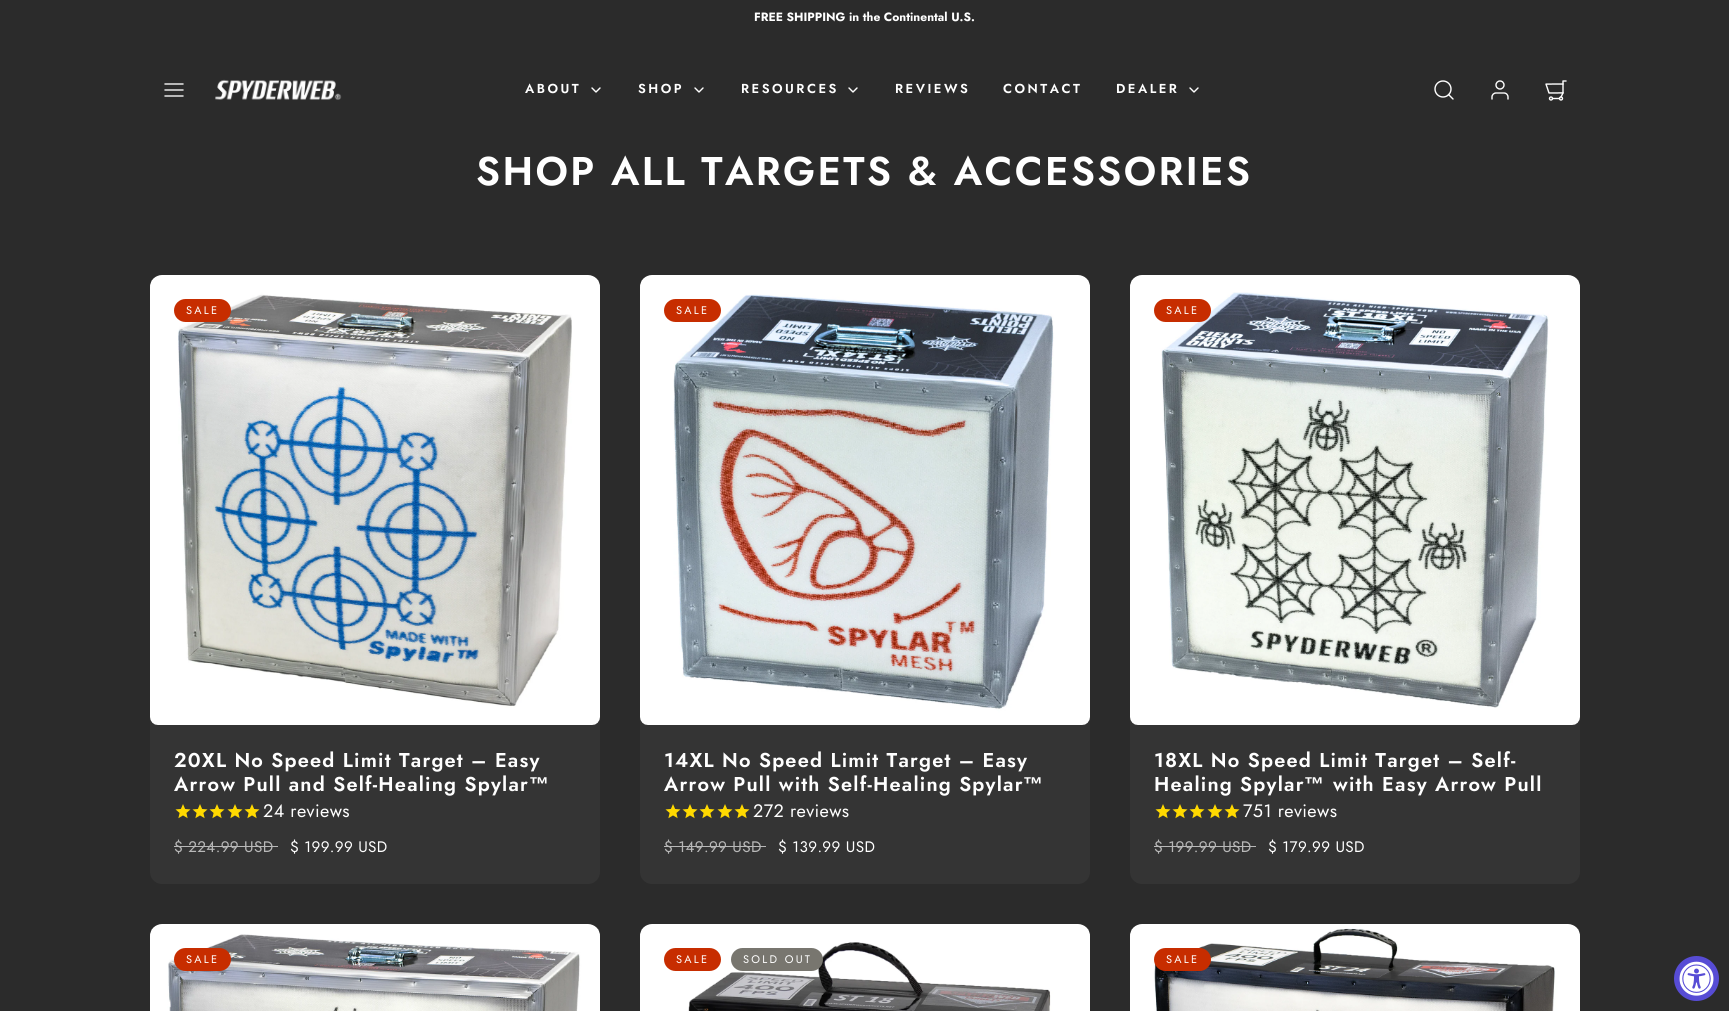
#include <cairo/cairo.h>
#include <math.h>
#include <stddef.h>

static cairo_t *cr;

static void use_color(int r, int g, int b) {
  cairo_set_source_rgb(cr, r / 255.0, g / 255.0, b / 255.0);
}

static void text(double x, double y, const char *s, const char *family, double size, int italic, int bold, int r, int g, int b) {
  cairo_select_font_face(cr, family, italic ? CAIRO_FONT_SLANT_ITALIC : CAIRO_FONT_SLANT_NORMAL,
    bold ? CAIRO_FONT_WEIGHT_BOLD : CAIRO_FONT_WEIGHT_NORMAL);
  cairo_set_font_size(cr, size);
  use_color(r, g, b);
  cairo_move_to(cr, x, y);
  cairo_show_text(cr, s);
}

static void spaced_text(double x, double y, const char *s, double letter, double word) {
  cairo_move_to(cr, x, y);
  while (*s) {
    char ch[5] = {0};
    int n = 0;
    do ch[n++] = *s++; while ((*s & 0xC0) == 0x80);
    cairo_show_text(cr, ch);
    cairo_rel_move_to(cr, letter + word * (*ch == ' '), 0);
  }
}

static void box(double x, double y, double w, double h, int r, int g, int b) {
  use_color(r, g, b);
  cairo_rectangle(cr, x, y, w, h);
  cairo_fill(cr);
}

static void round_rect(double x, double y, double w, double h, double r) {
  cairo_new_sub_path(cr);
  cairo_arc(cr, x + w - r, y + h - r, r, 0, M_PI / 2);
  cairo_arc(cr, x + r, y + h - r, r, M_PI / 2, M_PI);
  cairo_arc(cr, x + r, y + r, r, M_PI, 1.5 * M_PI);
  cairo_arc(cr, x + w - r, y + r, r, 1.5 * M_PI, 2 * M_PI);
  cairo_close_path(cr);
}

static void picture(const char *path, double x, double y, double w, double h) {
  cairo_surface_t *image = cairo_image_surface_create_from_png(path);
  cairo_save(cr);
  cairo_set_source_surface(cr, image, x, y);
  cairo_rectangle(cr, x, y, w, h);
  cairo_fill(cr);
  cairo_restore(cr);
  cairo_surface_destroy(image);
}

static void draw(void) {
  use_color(43, 43, 43);
  cairo_paint(cr);
  picture("img_01.png", 164, 83, 20, 14);
  picture("img_02.png", 215, 79, 127, 21);
  cairo_new_path(cr);
  cairo_move_to(cr, 592, 88);
  cairo_line_to(cr, 596, 92);
  cairo_line_to(cr, 600, 88);
  use_color(255, 255, 255);
  cairo_set_line_width(cr, 1.4);
  cairo_set_line_cap(cr, CAIRO_LINE_CAP_ROUND);
  cairo_set_line_join(cr, CAIRO_LINE_JOIN_ROUND);
  cairo_stroke(cr);
  cairo_new_path(cr);
  cairo_move_to(cr, 695, 88);
  cairo_line_to(cr, 699, 92);
  cairo_line_to(cr, 703, 88);
  cairo_stroke(cr);
  cairo_new_path(cr);
  cairo_move_to(cr, 849, 88);
  cairo_line_to(cr, 853, 92);
  cairo_line_to(cr, 857, 88);
  cairo_stroke(cr);
  cairo_new_path(cr);
  cairo_move_to(cr, 1190, 88);
  cairo_line_to(cr, 1194, 92);
  cairo_line_to(cr, 1198, 88);
  cairo_stroke(cr);
  cairo_arc(cr, 1443, 89, 8, 0, 2 * M_PI);
  cairo_set_line_cap(cr, CAIRO_LINE_CAP_BUTT);
  cairo_set_line_join(cr, CAIRO_LINE_JOIN_MITER);
  cairo_stroke(cr);
  cairo_new_path(cr);
  cairo_move_to(cr, 1453, 99);
  cairo_line_to(cr, 1448.5, 94.5);
  cairo_set_line_cap(cr, CAIRO_LINE_CAP_ROUND);
  cairo_set_line_join(cr, CAIRO_LINE_JOIN_ROUND);
  cairo_stroke(cr);
  picture("img_03.png", 1491, 80, 18, 20);
  picture("img_04.png", 1545, 80, 22, 21);
  use_color(52, 52, 52);
  round_rect(150, 275, 450, 609, 12);
  cairo_fill(cr);
  picture("img_05.png", 150, 275, 450, 450);
  use_color(199, 45, 0);
  round_rect(174, 299, 57, 23, 11.5);
  cairo_fill(cr);
  picture("img_06.png", 175, 804, 16, 15);
  picture("img_06.png", 192, 804, 16, 15);
  picture("img_06.png", 209, 804, 16, 15);
  picture("img_06.png", 227, 804, 16, 15);
  picture("img_06.png", 244, 804, 16, 15);
  box(174, 846, 104, 1, 184, 184, 184);
  use_color(52, 52, 52);
  round_rect(640, 275, 450, 609, 12);
  cairo_fill(cr);
  picture("img_07.png", 640, 275, 450, 450);
  use_color(199, 45, 0);
  round_rect(664, 299, 57, 23, 11.5);
  cairo_fill(cr);
  picture("img_06.png", 665, 804, 16, 15);
  picture("img_06.png", 682, 804, 16, 15);
  picture("img_06.png", 699, 804, 16, 15);
  picture("img_06.png", 717, 804, 16, 15);
  picture("img_06.png", 734, 804, 16, 15);
  box(664, 846, 102, 1, 184, 184, 184);
  use_color(52, 52, 52);
  round_rect(1130, 275, 450, 609, 12);
  cairo_fill(cr);
  picture("img_08.png", 1130, 275, 450, 450);
  use_color(199, 45, 0);
  round_rect(1154, 299, 57, 23, 11.5);
  cairo_fill(cr);
  picture("img_06.png", 1155, 804, 16, 15);
  picture("img_06.png", 1172, 804, 16, 15);
  picture("img_06.png", 1189, 804, 16, 15);
  picture("img_06.png", 1207, 804, 16, 15);
  picture("img_06.png", 1224, 804, 16, 15);
  box(1154, 846, 102, 1, 184, 184, 184);
  picture("img_09.png", 150, 924, 450, 87);
  use_color(199, 45, 0);
  round_rect(174, 948, 57, 23, 11.5);
  cairo_fill(cr);
  picture("img_10.png", 640, 924, 450, 87);
  round_rect(664, 948, 57, 23, 11.5);
  cairo_fill(cr);
  use_color(120, 118, 111);
  round_rect(731, 948, 92, 23, 11.5);
  cairo_fill(cr);
  picture("img_11.png", 1130, 924, 450, 87);
  use_color(199, 45, 0);
  round_rect(1154, 948, 57, 23, 11.5);
  cairo_fill(cr);
  use_color(87, 76, 213);
  cairo_arc(cr, 1696.5, 978.5, 22.5, 0, 2 * M_PI);
  cairo_fill(cr);
  picture("img_12.png", 1679, 961, 35, 35);
  text(754, 21, "FREE SHIPPING in the Continental U.S.", "Jost", 12, 0, 1, 255, 255, 255);
  cairo_select_font_face(cr, "Jost SemiBold", CAIRO_FONT_SLANT_NORMAL, CAIRO_FONT_WEIGHT_NORMAL);
  cairo_set_font_size(cr, 13);
  spaced_text(525, 93, "ABOUT", 2.5, 0);
  spaced_text(638, 93, "SHOP", 2.5, 0);
  spaced_text(741, 93, "RESOURCES", 2.5, 0);
  spaced_text(895, 93, "REVIEWS", 2.5, 0);
  spaced_text(1003, 93, "CONTACT", 2.5, 0);
  spaced_text(1116, 93, "DEALER", 2.5, 0);
  cairo_set_font_size(cr, 40);
  spaced_text(476, 185, "SHOP ALL TARGETS & ACCESSORIES", 2.4, 0);
  cairo_select_font_face(cr, "Jost", CAIRO_FONT_SLANT_NORMAL, CAIRO_FONT_WEIGHT_NORMAL);
  cairo_set_font_size(cr, 11);
  spaced_text(186, 314, "SALE", 2.25, 0);
  cairo_select_font_face(cr, "Jost SemiBold", CAIRO_FONT_SLANT_NORMAL, CAIRO_FONT_WEIGHT_NORMAL);
  cairo_set_font_size(cr, 20);
  spaced_text(174, 767, "20XL No Speed Limit Target – Easy", 1.2, 0);
  spaced_text(174, 791, "Arrow Pull and Self-Healing Spylar", 1.2, 0);
  cairo_select_font_face(cr, "Liberation Sans", CAIRO_FONT_SLANT_NORMAL, CAIRO_FONT_WEIGHT_BOLD);
  spaced_text(529, 791, "™", 1.2, 0);
  cairo_select_font_face(cr, "Jost", CAIRO_FONT_SLANT_NORMAL, CAIRO_FONT_WEIGHT_NORMAL);
  cairo_set_font_size(cr, 18);
  spaced_text(263, 817, "24 reviews", 0.4, 0);
  cairo_set_font_size(cr, 15.25);
  use_color(184, 184, 184);
  spaced_text(174, 852, "$ 224.99 USD", 0.4, 0);
  use_color(255, 255, 255);
  spaced_text(290, 852, "$ 199.99 USD", 0.4, 0);
  cairo_set_font_size(cr, 11);
  spaced_text(676, 314, "SALE", 2.25, 0);
  cairo_select_font_face(cr, "Jost SemiBold", CAIRO_FONT_SLANT_NORMAL, CAIRO_FONT_WEIGHT_NORMAL);
  cairo_set_font_size(cr, 20);
  spaced_text(664, 767, "14XL No Speed Limit Target – Easy", 1.2, 0);
  spaced_text(664, 791, "Arrow Pull with Self-Healing Spylar", 1.2, 0);
  cairo_select_font_face(cr, "Liberation Sans", CAIRO_FONT_SLANT_NORMAL, CAIRO_FONT_WEIGHT_BOLD);
  spaced_text(1023, 791, "™", 1.2, 0);
  cairo_select_font_face(cr, "Jost", CAIRO_FONT_SLANT_NORMAL, CAIRO_FONT_WEIGHT_NORMAL);
  cairo_set_font_size(cr, 18);
  spaced_text(753, 817, "272 reviews", 0.4, 0);
  cairo_set_font_size(cr, 15.25);
  use_color(184, 184, 184);
  spaced_text(664, 852, "$ 149.99 USD", 0.4, 0);
  use_color(255, 255, 255);
  spaced_text(778, 852, "$ 139.99 USD", 0.4, 0);
  cairo_set_font_size(cr, 11);
  spaced_text(1166, 314, "SALE", 2.25, 0);
  cairo_select_font_face(cr, "Jost SemiBold", CAIRO_FONT_SLANT_NORMAL, CAIRO_FONT_WEIGHT_NORMAL);
  cairo_set_font_size(cr, 20);
  spaced_text(1154, 767, "18XL No Speed Limit Target – Self-", 1.2, 0);
  spaced_text(1154, 791, "Healing Spylar", 1.2, 0);
  cairo_select_font_face(cr, "Liberation Sans", CAIRO_FONT_SLANT_NORMAL, CAIRO_FONT_WEIGHT_BOLD);
  spaced_text(1304, 791, "™", 1.2, 0);
  cairo_select_font_face(cr, "Jost SemiBold", CAIRO_FONT_SLANT_NORMAL, CAIRO_FONT_WEIGHT_NORMAL);
  spaced_text(1333, 791, "with Easy Arrow Pull", 1.2, 0);
  cairo_select_font_face(cr, "Jost", CAIRO_FONT_SLANT_NORMAL, CAIRO_FONT_WEIGHT_NORMAL);
  cairo_set_font_size(cr, 18);
  spaced_text(1243, 817, "751 reviews", 0.4, 0);
  cairo_set_font_size(cr, 15.25);
  use_color(184, 184, 184);
  spaced_text(1154, 852, "$ 199.99 USD", 0.4, 0);
  use_color(255, 255, 255);
  spaced_text(1268, 852, "$ 179.99 USD", 0.4, 0);
  cairo_set_font_size(cr, 11);
  spaced_text(186, 963, "SALE", 2.25, 0);
  spaced_text(676, 963, "SALE", 2.25, 0);
  spaced_text(743, 963, "SOLD OUT", 2.25, 0);
  spaced_text(1166, 963, "SALE", 2.25, 0);
}

int main(void) {
  cairo_surface_t *surface = cairo_image_surface_create(CAIRO_FORMAT_RGB24, 1729, 1011);
  cr = cairo_create(surface);
  cairo_font_options_t *options = cairo_font_options_create();
  cairo_font_options_set_hint_metrics(options, CAIRO_HINT_METRICS_OFF);
  cairo_font_options_set_hint_style(options, CAIRO_HINT_STYLE_NONE);
  cairo_set_font_options(cr, options);
  cairo_set_miter_limit(cr, 4);
  draw();
  cairo_surface_write_to_png(surface, "out.png");
  cairo_font_options_destroy(options);
  cairo_destroy(cr);
  cairo_surface_destroy(surface);
  return 0;
}
